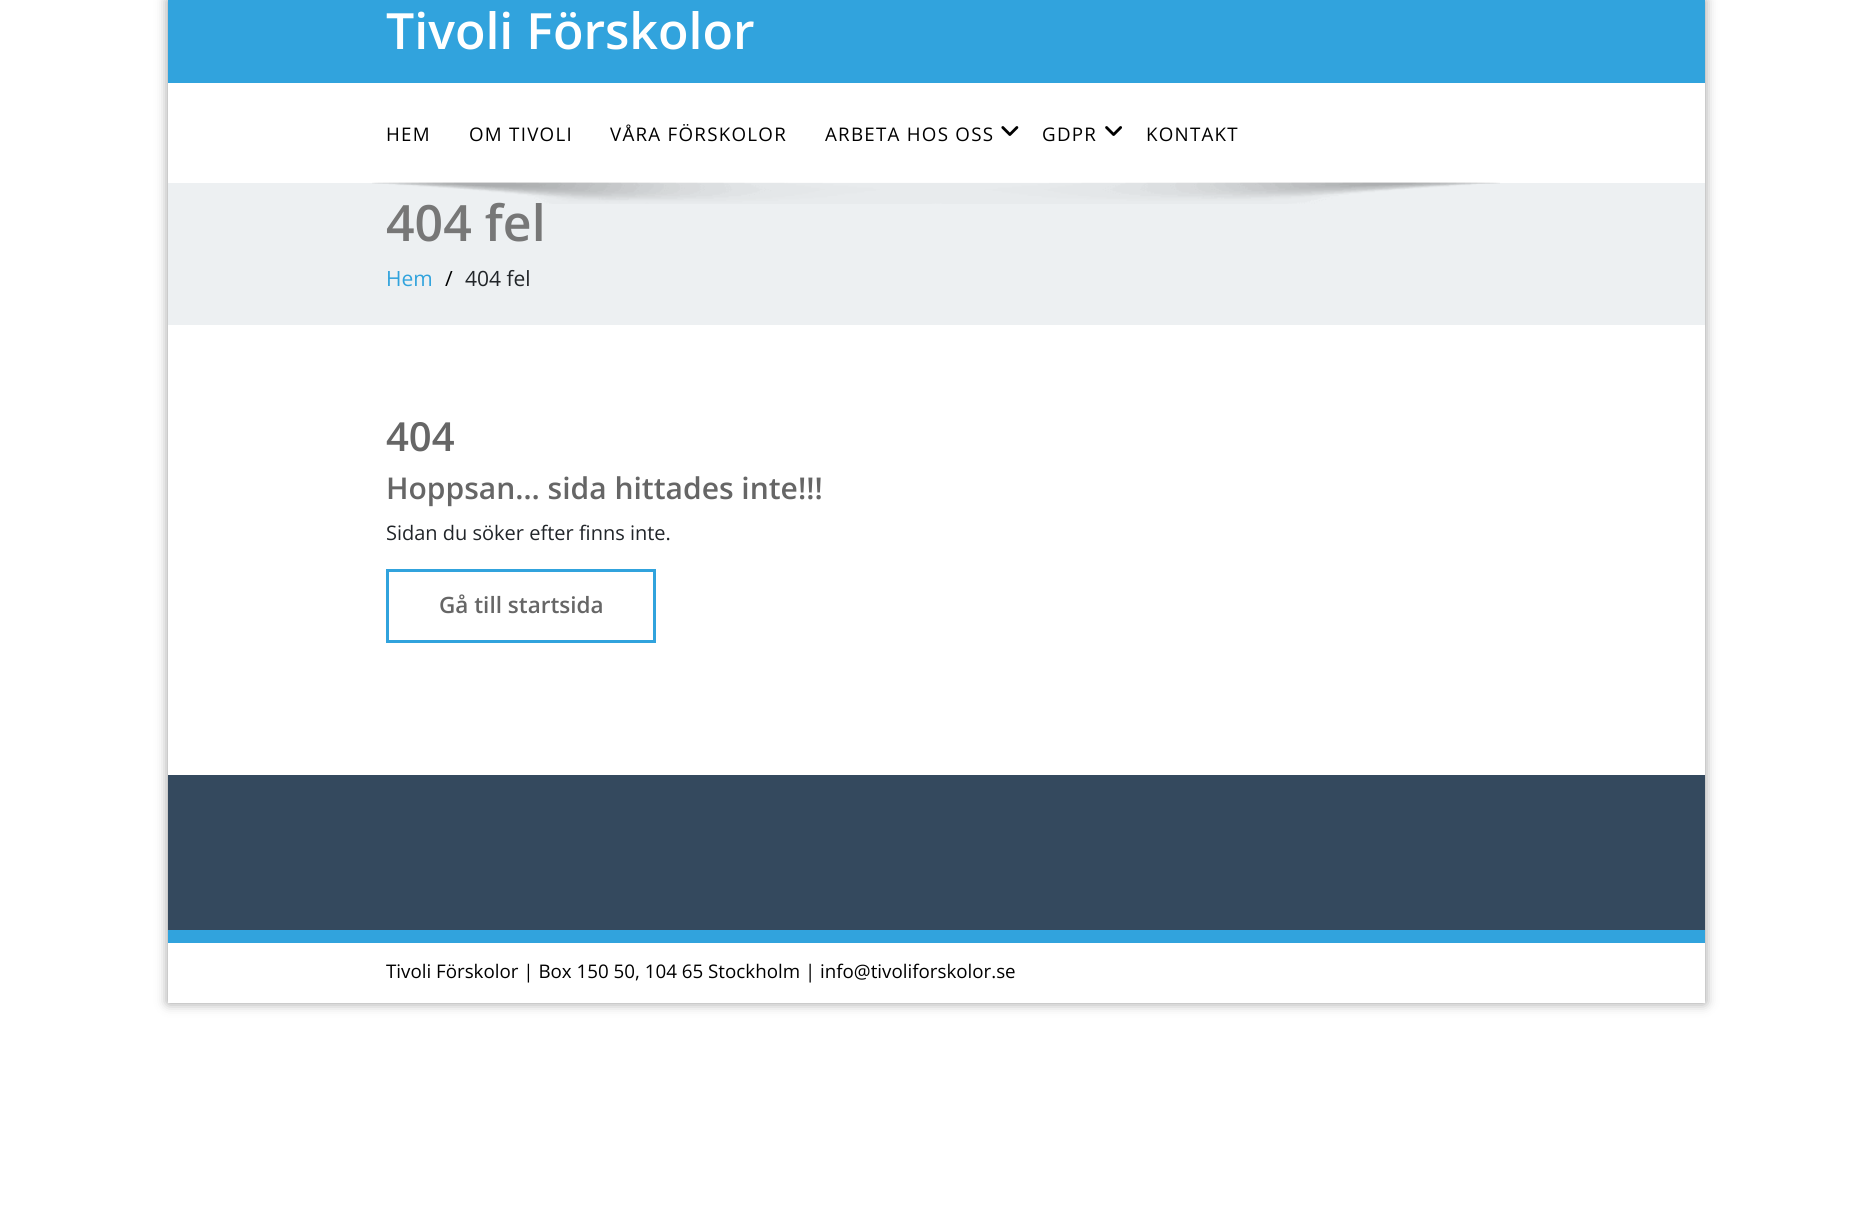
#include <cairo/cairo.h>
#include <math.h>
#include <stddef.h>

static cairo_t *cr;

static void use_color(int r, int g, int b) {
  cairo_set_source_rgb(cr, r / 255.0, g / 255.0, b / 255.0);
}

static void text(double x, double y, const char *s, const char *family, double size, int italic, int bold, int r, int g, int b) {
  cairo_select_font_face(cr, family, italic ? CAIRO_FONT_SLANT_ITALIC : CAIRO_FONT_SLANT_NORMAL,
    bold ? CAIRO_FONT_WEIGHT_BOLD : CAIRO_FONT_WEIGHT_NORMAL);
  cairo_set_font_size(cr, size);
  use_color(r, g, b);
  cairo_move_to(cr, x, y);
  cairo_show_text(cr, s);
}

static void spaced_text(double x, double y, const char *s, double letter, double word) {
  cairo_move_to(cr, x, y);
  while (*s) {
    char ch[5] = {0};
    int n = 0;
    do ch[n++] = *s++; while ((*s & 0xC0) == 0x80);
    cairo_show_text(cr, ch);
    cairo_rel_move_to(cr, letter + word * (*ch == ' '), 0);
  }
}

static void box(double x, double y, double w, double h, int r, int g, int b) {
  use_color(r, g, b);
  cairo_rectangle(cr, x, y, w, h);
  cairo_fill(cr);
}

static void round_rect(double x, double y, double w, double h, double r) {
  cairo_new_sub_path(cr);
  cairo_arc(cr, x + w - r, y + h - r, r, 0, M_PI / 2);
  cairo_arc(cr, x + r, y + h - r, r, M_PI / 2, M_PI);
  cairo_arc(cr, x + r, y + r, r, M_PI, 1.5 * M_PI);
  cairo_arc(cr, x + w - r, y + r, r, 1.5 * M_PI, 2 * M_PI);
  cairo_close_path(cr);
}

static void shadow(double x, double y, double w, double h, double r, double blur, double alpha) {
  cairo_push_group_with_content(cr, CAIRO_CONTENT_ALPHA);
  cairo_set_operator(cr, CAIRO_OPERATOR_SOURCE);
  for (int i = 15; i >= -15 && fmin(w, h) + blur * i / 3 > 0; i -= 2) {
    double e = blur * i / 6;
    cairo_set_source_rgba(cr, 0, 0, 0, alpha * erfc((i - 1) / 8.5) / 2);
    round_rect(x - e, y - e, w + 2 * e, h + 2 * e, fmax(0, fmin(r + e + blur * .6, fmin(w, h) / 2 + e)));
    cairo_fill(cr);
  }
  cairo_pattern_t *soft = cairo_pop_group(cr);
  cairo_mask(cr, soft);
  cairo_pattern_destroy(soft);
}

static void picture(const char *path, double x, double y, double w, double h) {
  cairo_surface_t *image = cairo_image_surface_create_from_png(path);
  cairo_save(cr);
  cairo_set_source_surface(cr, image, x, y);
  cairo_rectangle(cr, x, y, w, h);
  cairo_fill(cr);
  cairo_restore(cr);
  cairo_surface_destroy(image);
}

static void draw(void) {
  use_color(255, 255, 255);
  cairo_paint(cr);
  cairo_save(cr);
  cairo_set_fill_rule(cr, CAIRO_FILL_RULE_EVEN_ODD);
  cairo_new_path(cr);
  cairo_move_to(cr, 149, 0);
  cairo_line_to(cr, 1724, 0);
  cairo_line_to(cr, 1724, 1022);
  cairo_line_to(cr, 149, 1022);
  cairo_close_path(cr);
  cairo_move_to(cr, 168, 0);
  cairo_line_to(cr, 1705, 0);
  cairo_line_to(cr, 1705, 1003);
  cairo_line_to(cr, 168, 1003);
  cairo_close_path(cr);
  cairo_clip(cr);
  use_color(48, 48, 48);
  shadow(168, 0, 1537, 1003, 0, 6, 0.5);
  cairo_restore(cr);
  box(168, 0, 1537, 83, 49, 163, 221);
  picture("img_01.png", 1001, 126, 18, 10);
  picture("img_02.png", 1105, 126, 17, 10);
  box(168, 183, 1537, 142, 237, 240, 242);
  cairo_rectangle(cr, 387.5, 570.5, 267, 71);
  use_color(49, 163, 221);
  cairo_set_line_width(cr, 3);
  cairo_stroke(cr);
  box(168, 775, 1537, 155, 52, 73, 94);
  box(168, 930, 1537, 13, 49, 163, 221);
  text(386, 49, "Tivoli Förskolor", "Open Sans SemiBold", 50, 0, 0, 255, 255, 255);
  cairo_select_font_face(cr, "Open Sans", CAIRO_FONT_SLANT_NORMAL, CAIRO_FONT_WEIGHT_NORMAL);
  cairo_set_font_size(cr, 18.75);
  use_color(0, 0, 0);
  spaced_text(386, 141, "HEM", 1.25, 0);
  spaced_text(469, 141, "OM TIVOLI", 1.25, 0);
  spaced_text(610, 141, "VÅRA FÖRSKOLOR", 1.25, 0);
  spaced_text(825, 141, "ARBETA HOS OSS", 1.25, 0);
  spaced_text(1042, 141, "GDPR", 1.25, 0);
  spaced_text(1146, 141, "KONTAKT", 1.25, 0);
  text(386, 241, "404 fel", "Open Sans SemiBold", 50, 0, 0, 119, 119, 119);
  picture("img_03.png", 372, 182, 1128, 22);
  text(386, 286, "Hem", "Open Sans", 21, 0, 0, 49, 163, 221);
  text(445, 286, "/", "Open Sans", 21, 0, 0, 0, 0, 0);
  text(465, 286, "404 fel", "Open Sans", 21, 0, 0, 33, 37, 41);
  text(386, 451, "404", "Open Sans SemiBold", 40, 0, 0, 102, 102, 102);
  text(386, 499, "Hoppsan… sida hittades inte!!!", "Open Sans SemiBold", 30, 0, 0, 102, 102, 102);
  text(386, 540, "Sidan du söker efter finns inte.", "Open Sans", 20, 0, 0, 33, 37, 41);
  text(439, 613, "Gå till startsida", "Open Sans SemiBold", 22.5, 0, 0, 102, 102, 102);
  text(386, 978, "Tivoli Förskolor | Box 150 50, 104 65 Stockholm | info@tivoliforskolor.se", "Open Sans", 18.75, 0, 0, 0, 0, 0);
}

int main(void) {
  cairo_surface_t *surface = cairo_image_surface_create(CAIRO_FORMAT_RGB24, 1872, 1216);
  cr = cairo_create(surface);
  cairo_font_options_t *options = cairo_font_options_create();
  cairo_font_options_set_hint_metrics(options, CAIRO_HINT_METRICS_OFF);
  cairo_font_options_set_hint_style(options, CAIRO_HINT_STYLE_NONE);
  cairo_set_font_options(cr, options);
  cairo_set_miter_limit(cr, 4);
  draw();
  cairo_surface_write_to_png(surface, "out.png");
  cairo_font_options_destroy(options);
  cairo_destroy(cr);
  cairo_surface_destroy(surface);
  return 0;
}
